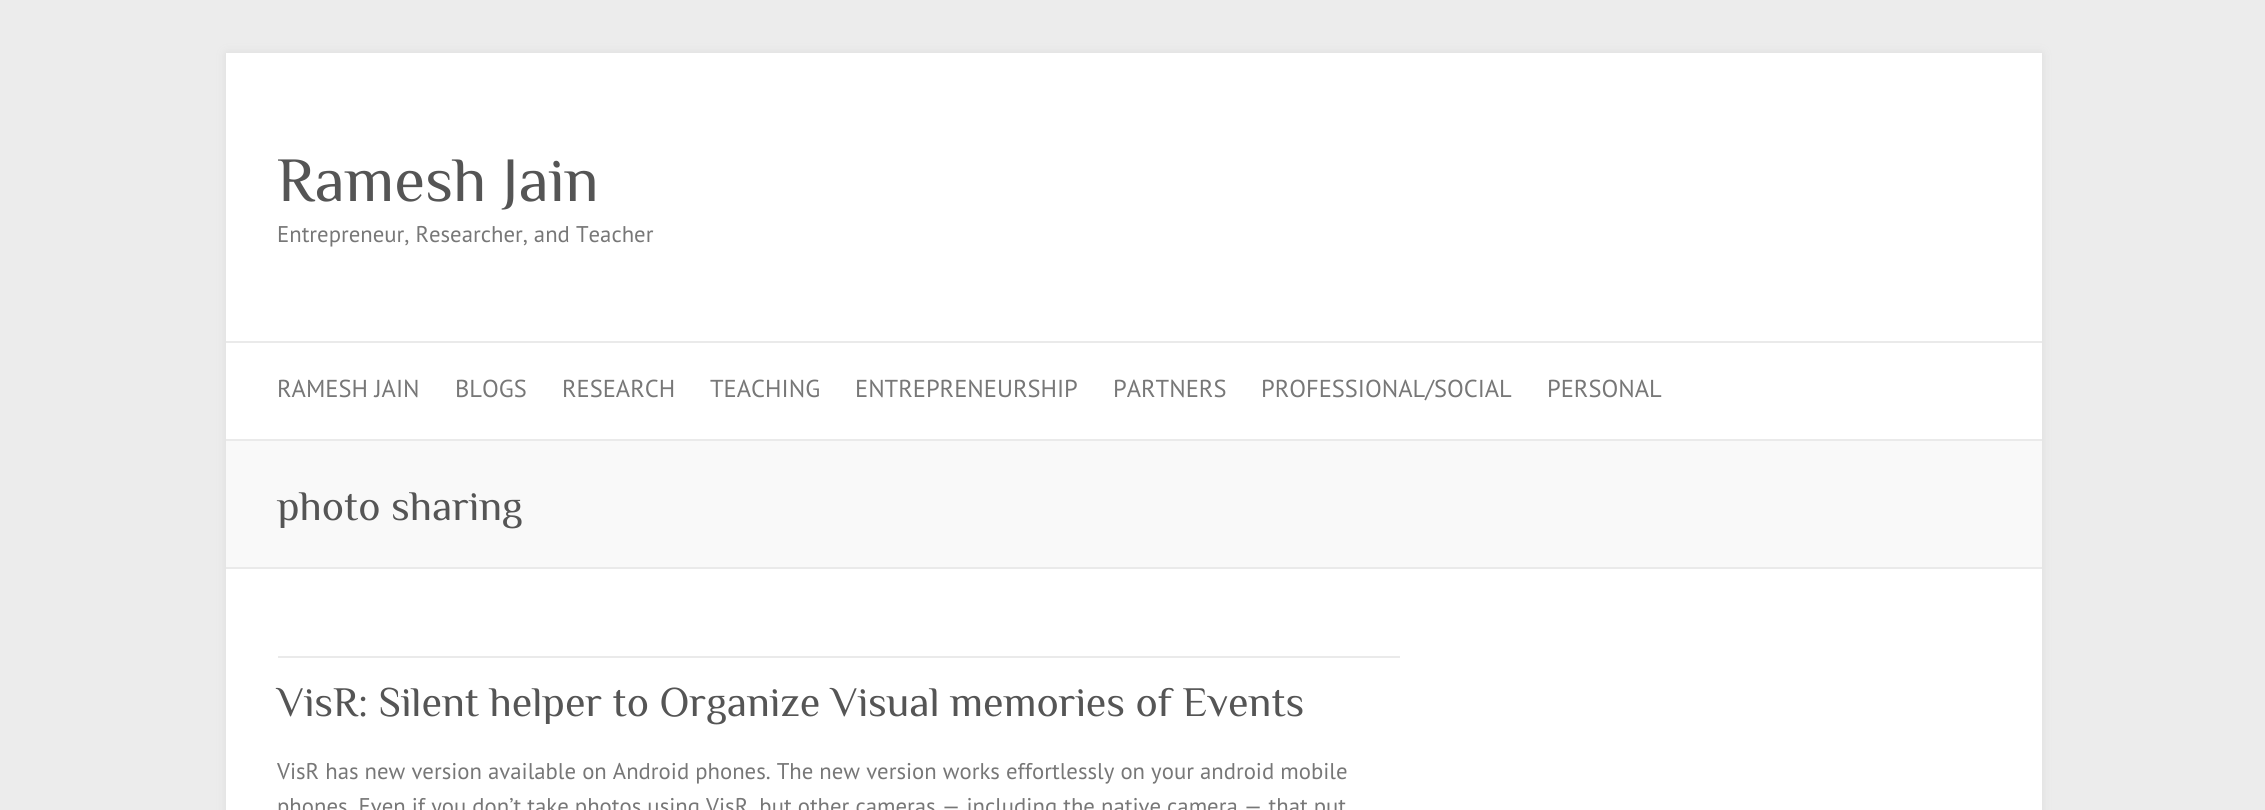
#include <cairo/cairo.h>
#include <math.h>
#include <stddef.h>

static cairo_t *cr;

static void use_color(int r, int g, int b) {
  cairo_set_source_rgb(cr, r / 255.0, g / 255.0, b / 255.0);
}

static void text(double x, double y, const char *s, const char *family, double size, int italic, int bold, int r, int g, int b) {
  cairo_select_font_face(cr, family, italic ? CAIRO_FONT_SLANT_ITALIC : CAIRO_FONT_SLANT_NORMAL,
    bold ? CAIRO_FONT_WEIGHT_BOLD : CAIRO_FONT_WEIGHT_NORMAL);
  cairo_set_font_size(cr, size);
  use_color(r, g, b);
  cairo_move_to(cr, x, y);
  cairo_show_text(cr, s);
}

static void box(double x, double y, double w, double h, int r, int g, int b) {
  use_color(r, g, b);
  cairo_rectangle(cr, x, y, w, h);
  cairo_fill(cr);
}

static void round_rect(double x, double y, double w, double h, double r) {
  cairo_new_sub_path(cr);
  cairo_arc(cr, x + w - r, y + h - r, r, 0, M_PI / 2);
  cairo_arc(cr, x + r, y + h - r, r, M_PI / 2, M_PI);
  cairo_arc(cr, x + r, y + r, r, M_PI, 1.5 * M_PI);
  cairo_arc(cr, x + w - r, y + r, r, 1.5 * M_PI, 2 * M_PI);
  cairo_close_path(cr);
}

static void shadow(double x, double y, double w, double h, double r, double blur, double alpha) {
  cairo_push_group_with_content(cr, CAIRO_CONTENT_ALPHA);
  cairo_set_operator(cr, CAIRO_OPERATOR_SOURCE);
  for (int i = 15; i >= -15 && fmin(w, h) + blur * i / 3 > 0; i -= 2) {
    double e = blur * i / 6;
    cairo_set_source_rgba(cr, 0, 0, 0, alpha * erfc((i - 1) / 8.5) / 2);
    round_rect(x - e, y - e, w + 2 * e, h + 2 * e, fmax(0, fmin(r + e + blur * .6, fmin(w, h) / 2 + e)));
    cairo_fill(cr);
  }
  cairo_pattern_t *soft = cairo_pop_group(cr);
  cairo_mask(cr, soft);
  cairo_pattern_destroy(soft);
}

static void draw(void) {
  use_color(236, 236, 236);
  cairo_paint(cr);
  use_color(221, 221, 221);
  shadow(226, 53, 1816, 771, 0, 4.5, 1);
  box(226, 53, 1816, 757, 255, 255, 255);
  box(226, 341, 1816, 2, 234, 234, 234);
  box(226, 439, 1816, 2, 234, 234, 234);
  box(226, 441, 1816, 126, 249, 249, 249);
  box(226, 567, 1816, 2, 234, 234, 234);
  box(278, 656, 1122, 2, 234, 234, 234);
  text(277, 201, "Ramesh Jain", "Philosopher", 63, 0, 0, 85, 85, 85);
  text(277, 242, "Entrepreneur, Researcher, and Teacher", "PT Sans", 22.75, 0, 0, 119, 119, 119);
  text(277, 397, "RAMESH JAIN", "PT Sans", 24.5, 0, 0, 119, 119, 119);
  text(455, 397, "BLOGS", "PT Sans", 24.5, 0, 0, 119, 119, 119);
  text(562, 397, "RESEARCH", "PT Sans", 24.5, 0, 0, 119, 119, 119);
  text(710, 397, "TEACHING", "PT Sans", 24.5, 0, 0, 119, 119, 119);
  text(855, 397, "ENTREPRENEURSHIP", "PT Sans", 24.5, 0, 0, 119, 119, 119);
  text(1113, 397, "PARTNERS", "PT Sans", 24.5, 0, 0, 119, 119, 119);
  text(1261, 397, "PROFESSIONAL/SOCIAL", "PT Sans", 24.5, 0, 0, 119, 119, 119);
  text(1547, 397, "PERSONAL", "PT Sans", 24.5, 0, 0, 119, 119, 119);
  text(277, 520, "photo sharing", "Philosopher", 42, 0, 0, 85, 85, 85);
  text(277, 716, "VisR: Silent helper to Organize Visual memories of Events", "Philosopher", 42, 0, 0, 85, 85, 85);
  text(277, 779, "VisR has new version available on Android phones. The new version works effortlessly on your android mobile", "PT Sans", 22.75, 0, 0, 119, 119, 119);
  text(277, 814, "phones. Even if you don’t take photos using VisR, but other cameras — including the native camera — that put", "PT Sans", 22.75, 0, 0, 119, 119, 119);
}

int main(void) {
  cairo_surface_t *surface = cairo_image_surface_create(CAIRO_FORMAT_RGB24, 2265, 810);
  cr = cairo_create(surface);
  cairo_font_options_t *options = cairo_font_options_create();
  cairo_font_options_set_hint_metrics(options, CAIRO_HINT_METRICS_OFF);
  cairo_font_options_set_hint_style(options, CAIRO_HINT_STYLE_NONE);
  cairo_set_font_options(cr, options);
  cairo_set_miter_limit(cr, 4);
  draw();
  cairo_surface_write_to_png(surface, "out.png");
  cairo_font_options_destroy(options);
  cairo_destroy(cr);
  cairo_surface_destroy(surface);
  return 0;
}
